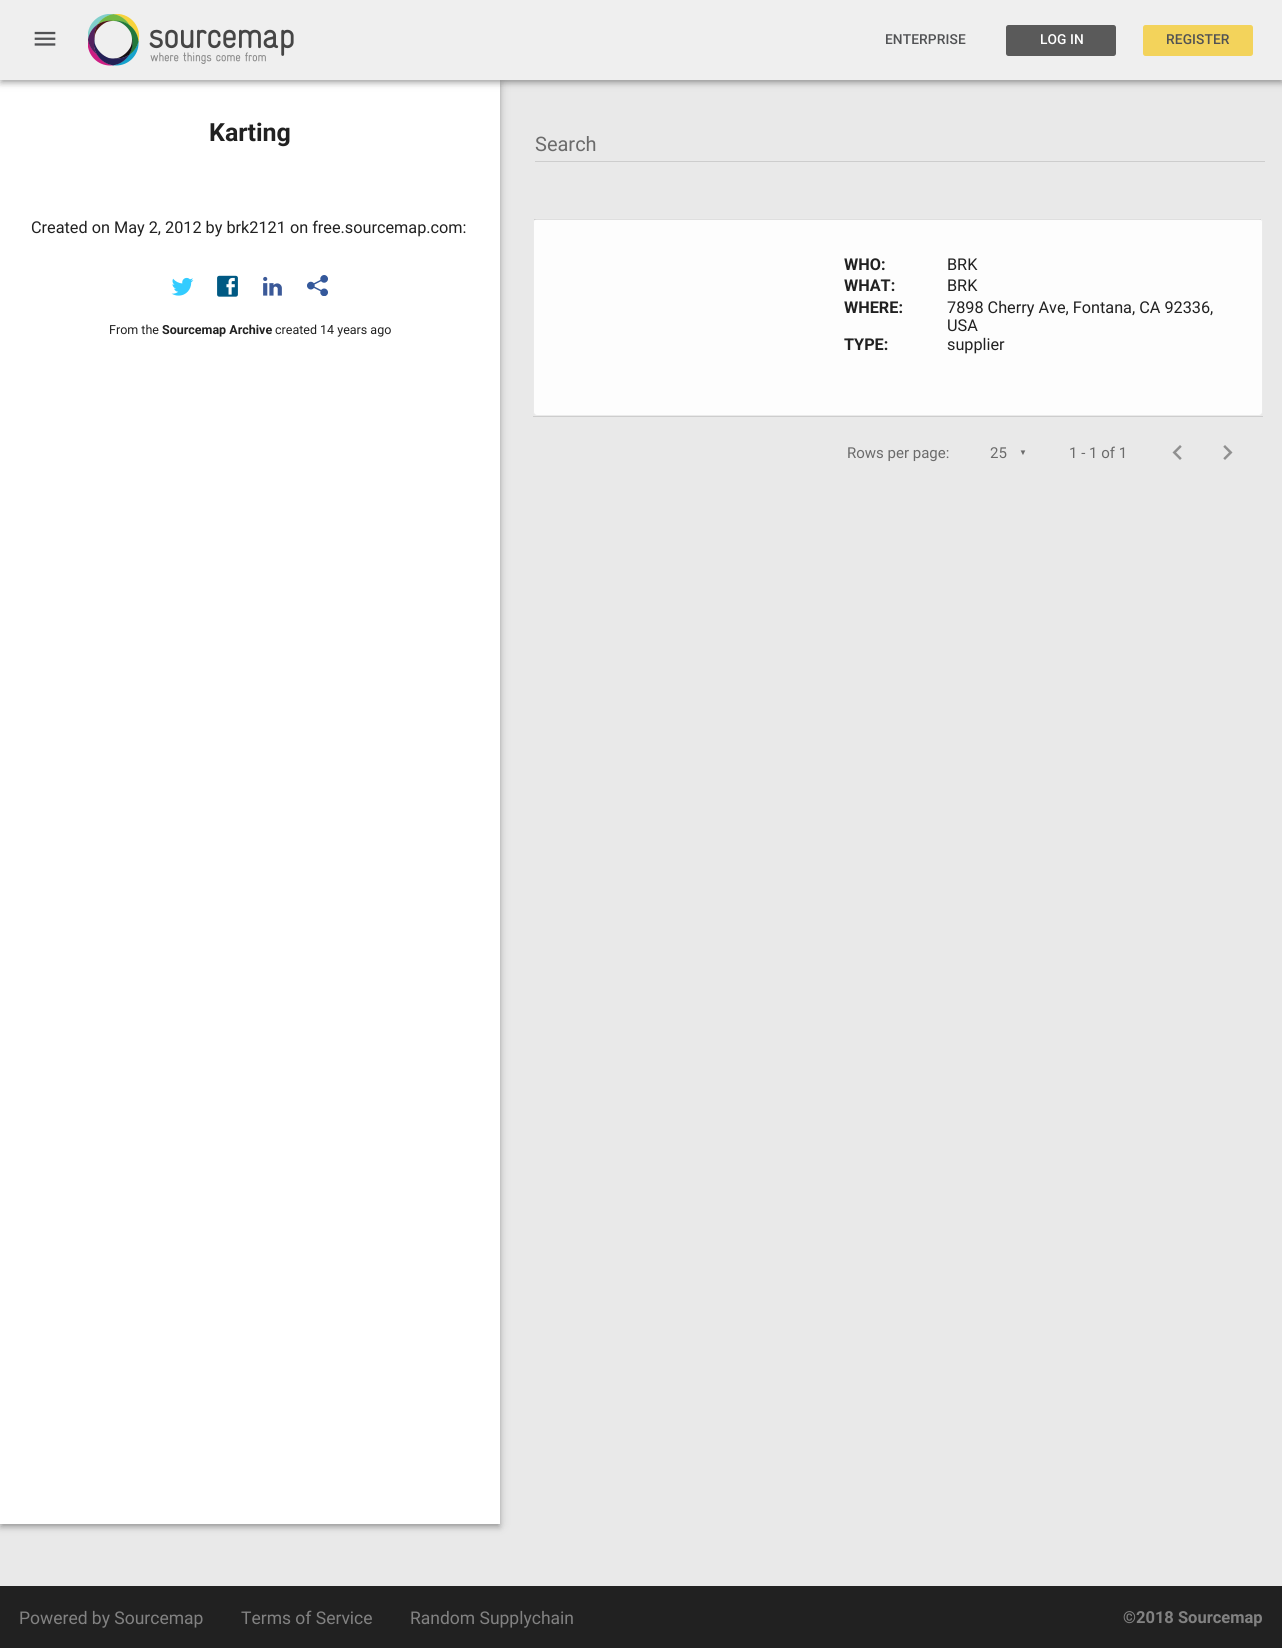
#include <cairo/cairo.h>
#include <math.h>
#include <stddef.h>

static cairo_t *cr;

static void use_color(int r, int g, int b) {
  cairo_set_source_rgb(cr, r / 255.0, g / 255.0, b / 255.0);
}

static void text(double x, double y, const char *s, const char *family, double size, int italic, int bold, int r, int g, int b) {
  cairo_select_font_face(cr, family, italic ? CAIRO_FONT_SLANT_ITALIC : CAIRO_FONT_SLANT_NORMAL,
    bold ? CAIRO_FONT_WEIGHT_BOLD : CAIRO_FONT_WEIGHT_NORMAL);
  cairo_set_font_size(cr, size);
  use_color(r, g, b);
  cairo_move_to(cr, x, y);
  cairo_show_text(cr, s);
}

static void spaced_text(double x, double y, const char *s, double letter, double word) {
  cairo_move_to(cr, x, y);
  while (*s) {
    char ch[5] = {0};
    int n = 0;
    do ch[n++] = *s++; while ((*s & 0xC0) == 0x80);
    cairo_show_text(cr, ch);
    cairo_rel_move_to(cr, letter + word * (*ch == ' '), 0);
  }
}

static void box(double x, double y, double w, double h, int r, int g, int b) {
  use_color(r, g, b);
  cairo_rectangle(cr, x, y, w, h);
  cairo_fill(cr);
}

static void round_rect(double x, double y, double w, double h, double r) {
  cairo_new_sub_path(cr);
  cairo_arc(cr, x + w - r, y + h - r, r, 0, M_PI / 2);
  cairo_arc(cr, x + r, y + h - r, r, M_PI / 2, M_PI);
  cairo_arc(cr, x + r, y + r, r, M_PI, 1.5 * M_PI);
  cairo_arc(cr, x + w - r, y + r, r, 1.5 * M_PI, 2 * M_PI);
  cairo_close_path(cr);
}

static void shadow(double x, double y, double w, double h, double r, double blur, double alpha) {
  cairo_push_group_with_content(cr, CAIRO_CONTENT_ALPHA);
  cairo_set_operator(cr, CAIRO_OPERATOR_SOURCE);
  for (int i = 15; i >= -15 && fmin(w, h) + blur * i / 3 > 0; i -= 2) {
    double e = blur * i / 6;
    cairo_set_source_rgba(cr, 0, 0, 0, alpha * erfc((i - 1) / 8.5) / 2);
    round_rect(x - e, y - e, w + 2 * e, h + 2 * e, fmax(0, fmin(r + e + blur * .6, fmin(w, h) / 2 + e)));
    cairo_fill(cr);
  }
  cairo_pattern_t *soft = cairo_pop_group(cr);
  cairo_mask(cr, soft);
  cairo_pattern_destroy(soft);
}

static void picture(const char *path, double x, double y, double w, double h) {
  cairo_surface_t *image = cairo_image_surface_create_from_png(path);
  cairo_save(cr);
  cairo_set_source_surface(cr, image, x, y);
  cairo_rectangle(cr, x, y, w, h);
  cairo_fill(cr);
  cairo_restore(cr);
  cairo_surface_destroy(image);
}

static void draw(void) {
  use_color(233, 233, 233);
  cairo_paint(cr);
  use_color(0, 0, 0);
  shadow(3, 86, 495, 1439, 0, 2, 0.12);
  shadow(0, 84, 500, 1444, 0, 2.5, 0.14);
  shadow(0, 81, 500, 1444, 0, 5, 0.2);
  box(0, 80, 500, 1444, 255, 255, 255);
  use_color(0, 0, 0);
  shadow(3, 6, 1277, 75, 0, 2, 0.12);
  shadow(0, 4, 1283, 80, 0, 2.5, 0.14);
  shadow(0, 1, 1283, 80, 0, 5, 0.2);
  box(0, 0, 1282, 80, 239, 239, 239);
  picture("img_01.png", 34, 31, 22, 15);
  picture("img_02.png", 88, 14, 206, 52);
  use_color(90, 90, 90);
  round_rect(1006, 25, 110, 31, 2.5);
  cairo_fill(cr);
  use_color(243, 211, 91);
  round_rect(1143, 25, 110, 31, 2.5);
  cairo_fill(cr);
  picture("img_03.png", 171, 277, 23, 19);
  picture("img_04.png", 217, 275, 21, 22);
  picture("img_05.png", 263, 276, 19, 20);
  picture("img_06.png", 307, 275, 21, 21);
  box(535, 161, 730, 1, 205, 205, 205);
  use_color(253, 253, 253);
  round_rect(533.5, 218.5, 729, 197, 3.5);
  cairo_fill_preserve(cr);
  use_color(234, 234, 234);
  cairo_set_line_width(cr, 1);
  cairo_stroke(cr);
  cairo_set_source_rgba(cr, 0, 0, 0, 0.12);
  cairo_rectangle(cr, 534, 219, 727, 1);
  cairo_fill(cr);
  box(533, 416, 730, 1, 205, 205, 205);
  picture("img_07.png", 1172, 445, 10, 15);
  picture("img_08.png", 1223, 445, 10, 15);
  box(0, 1586, 1282, 62, 33, 33, 33);
  cairo_select_font_face(cr, "Roboto Medium", CAIRO_FONT_SLANT_NORMAL, CAIRO_FONT_WEIGHT_NORMAL);
  cairo_set_font_size(cr, 13.75);
  use_color(81, 82, 84);
  spaced_text(885, 44, "ENTERPRISE", 0.1, 0);
  use_color(255, 255, 255);
  spaced_text(1040, 44, "LOG IN", 0.1, 0);
  use_color(81, 82, 84);
  spaced_text(1166, 44, "REGISTER", 0.1, 0);
  text(209, 141, "Karting", "Roboto", 25, 0, 1, 33, 33, 33);
  text(31, 233, "Created on May 2, 2012 by brk2121 on free.sourcemap.com:", "Roboto", 16.25, 0, 0, 33, 33, 33);
  text(109, 334, "From the", "Roboto", 12.5, 0, 0, 33, 33, 33);
  text(162, 334, "Sourcemap Archive", "Roboto", 12.5, 0, 1, 33, 33, 33);
  text(275, 334, "created 14 years ago", "Roboto", 12.5, 0, 0, 33, 33, 33);
  text(535, 151, "Search", "Roboto", 20, 0, 0, 107, 107, 107);
  text(844, 270, "WHO:", "Roboto", 16.25, 0, 1, 33, 33, 33);
  text(947, 270, "BRK", "Roboto", 16.25, 0, 0, 33, 33, 33);
  text(844, 291, "WHAT:", "Roboto", 16.25, 0, 1, 33, 33, 33);
  text(947, 291, "BRK", "Roboto", 16.25, 0, 0, 33, 33, 33);
  text(844, 313, "WHERE:", "Roboto", 16.25, 0, 1, 33, 33, 33);
  text(947, 313, "7898 Cherry Ave, Fontana, CA 92336,", "Roboto", 16.25, 0, 0, 33, 33, 33);
  text(947, 331, "USA", "Roboto", 16.25, 0, 0, 33, 33, 33);
  text(844, 350, "TYPE:", "Roboto", 16.25, 0, 1, 33, 33, 33);
  text(947, 350, "supplier", "Roboto", 16.25, 0, 0, 33, 33, 33);
  text(847, 458, "Rows per page:", "Roboto", 15, 0, 0, 107, 107, 107);
  text(990, 458, "25", "Roboto", 15, 0, 0, 107, 107, 107);
  cairo_select_font_face(cr, "Liberation Sans", CAIRO_FONT_SLANT_NORMAL, CAIRO_FONT_WEIGHT_NORMAL);
  cairo_set_font_size(cr, 8);
  spaced_text(1019, 455, "▼", 8, 0);
  text(1069, 458, "1 - 1 of 1", "Roboto", 15, 0, 0, 107, 107, 107);
  text(19, 1624, "Powered by Sourcemap", "Roboto", 17.5, 0, 0, 130, 130, 130);
  text(241, 1624, "Terms of Service", "Roboto", 17.5, 0, 0, 130, 130, 130);
  text(410, 1624, "Random Supplychain", "Roboto", 17.5, 0, 0, 130, 130, 130);
  text(1123, 1623, "©2018 Sourcemap", "Roboto", 16.5, 0, 1, 130, 130, 130);
}

int main(void) {
  cairo_surface_t *surface = cairo_image_surface_create(CAIRO_FORMAT_RGB24, 1282, 1648);
  cr = cairo_create(surface);
  cairo_font_options_t *options = cairo_font_options_create();
  cairo_font_options_set_hint_metrics(options, CAIRO_HINT_METRICS_OFF);
  cairo_font_options_set_hint_style(options, CAIRO_HINT_STYLE_NONE);
  cairo_set_font_options(cr, options);
  cairo_set_miter_limit(cr, 4);
  draw();
  cairo_surface_write_to_png(surface, "out.png");
  cairo_font_options_destroy(options);
  cairo_destroy(cr);
  cairo_surface_destroy(surface);
  return 0;
}
